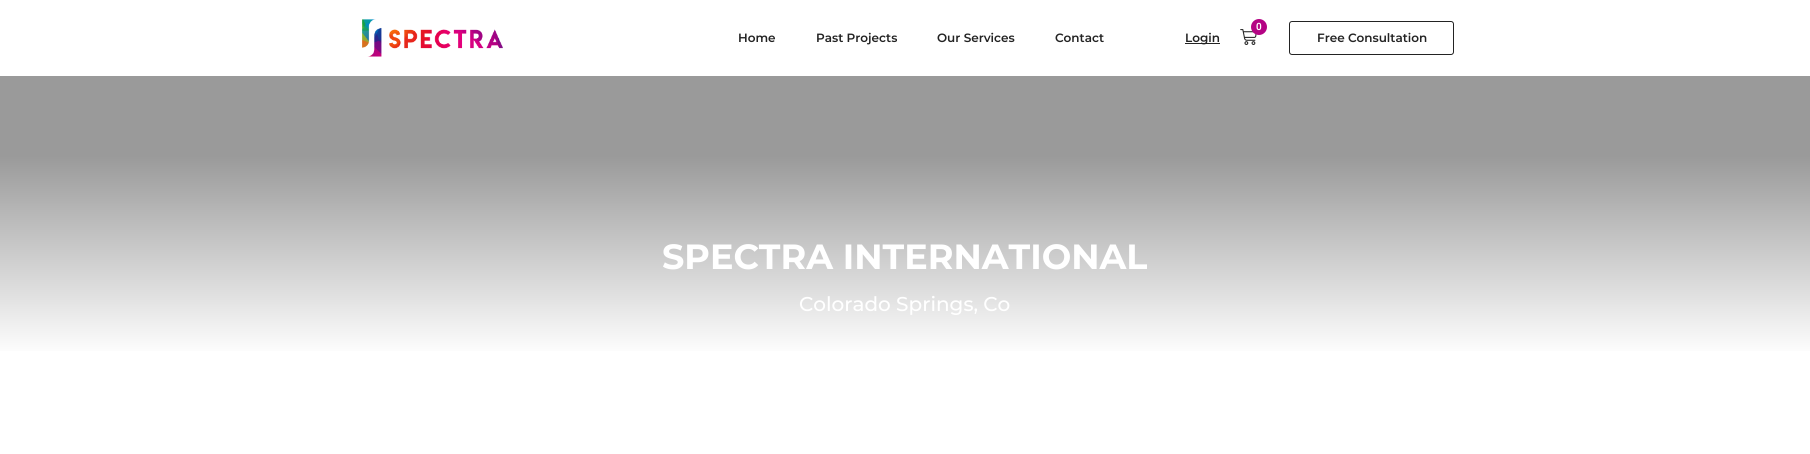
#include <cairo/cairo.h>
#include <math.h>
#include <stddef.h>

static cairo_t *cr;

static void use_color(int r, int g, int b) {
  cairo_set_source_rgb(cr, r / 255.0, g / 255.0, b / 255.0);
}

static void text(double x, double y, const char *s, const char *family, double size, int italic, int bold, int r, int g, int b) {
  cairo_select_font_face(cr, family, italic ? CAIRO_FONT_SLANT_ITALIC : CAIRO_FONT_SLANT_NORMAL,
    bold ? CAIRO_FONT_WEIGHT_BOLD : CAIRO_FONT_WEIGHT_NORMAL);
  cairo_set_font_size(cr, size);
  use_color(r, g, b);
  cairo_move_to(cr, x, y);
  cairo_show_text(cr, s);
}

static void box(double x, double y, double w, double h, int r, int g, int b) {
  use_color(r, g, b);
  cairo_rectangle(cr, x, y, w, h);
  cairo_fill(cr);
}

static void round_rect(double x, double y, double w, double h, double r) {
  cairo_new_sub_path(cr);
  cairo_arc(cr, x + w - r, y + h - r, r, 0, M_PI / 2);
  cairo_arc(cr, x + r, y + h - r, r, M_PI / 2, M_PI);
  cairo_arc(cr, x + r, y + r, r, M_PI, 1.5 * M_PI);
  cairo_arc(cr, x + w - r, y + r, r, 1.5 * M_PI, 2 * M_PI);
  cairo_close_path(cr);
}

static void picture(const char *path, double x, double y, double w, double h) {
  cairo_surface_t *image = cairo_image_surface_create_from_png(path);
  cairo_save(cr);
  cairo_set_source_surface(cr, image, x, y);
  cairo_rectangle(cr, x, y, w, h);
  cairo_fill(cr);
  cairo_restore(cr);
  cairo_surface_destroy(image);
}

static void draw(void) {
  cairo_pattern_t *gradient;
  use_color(255, 255, 255);
  cairo_paint(cr);
  picture("img_01.png", 362, 19, 141, 38);
  picture("img_02.png", 1240, 29, 17, 16);
  use_color(180, 3, 132);
  cairo_arc(cr, 1259, 27, 8, 0, 2 * M_PI);
  cairo_fill(cr);
  box(1185, 43, 35, 1, 35, 35, 35);
  round_rect(1289.5, 21.5, 164, 33, 2.5);
  cairo_set_line_width(cr, 1);
  cairo_stroke(cr);
  gradient = cairo_pattern_create_linear(905, 76, 905, 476);
  cairo_pattern_add_color_stop_rgba(gradient, 0.2, 0.604, 0.604, 0.604, 1);
  cairo_pattern_add_color_stop_rgba(gradient, 0.7, 1, 1, 1, 1);
  cairo_set_source(cr, gradient);
  cairo_pattern_destroy(gradient);
  cairo_rectangle(cr, 0, 76, 1810, 275);
  cairo_fill(cr);
  text(1256, 30, "0", "Roboto SemiBold", 10, 0, 0, 255, 255, 255);
  text(738, 42, "Home", "Montserrat SemiBold", 12, 0, 0, 35, 35, 35);
  text(816, 42, "Past Projects", "Montserrat SemiBold", 12, 0, 0, 35, 35, 35);
  text(937, 42, "Our Services", "Montserrat SemiBold", 12, 0, 0, 35, 35, 35);
  text(1055, 42, "Contact", "Montserrat SemiBold", 12, 0, 0, 35, 35, 35);
  text(1185, 42, "Login", "Montserrat SemiBold", 12, 0, 0, 35, 35, 35);
  text(1317, 42, "Free Consultation", "Montserrat SemiBold", 12, 0, 0, 35, 35, 35);
  text(662, 269, "SPECTRA INTERNATIONAL", "Montserrat", 35, 0, 1, 255, 255, 255);
  text(799, 311, "Colorado Springs, Co", "Montserrat Medium", 20, 0, 0, 255, 255, 255);
}

int main(void) {
  cairo_surface_t *surface = cairo_image_surface_create(CAIRO_FORMAT_RGB24, 1810, 454);
  cr = cairo_create(surface);
  cairo_font_options_t *options = cairo_font_options_create();
  cairo_font_options_set_hint_metrics(options, CAIRO_HINT_METRICS_OFF);
  cairo_font_options_set_hint_style(options, CAIRO_HINT_STYLE_NONE);
  cairo_set_font_options(cr, options);
  cairo_set_miter_limit(cr, 4);
  draw();
  cairo_surface_write_to_png(surface, "out.png");
  cairo_font_options_destroy(options);
  cairo_destroy(cr);
  cairo_surface_destroy(surface);
  return 0;
}
